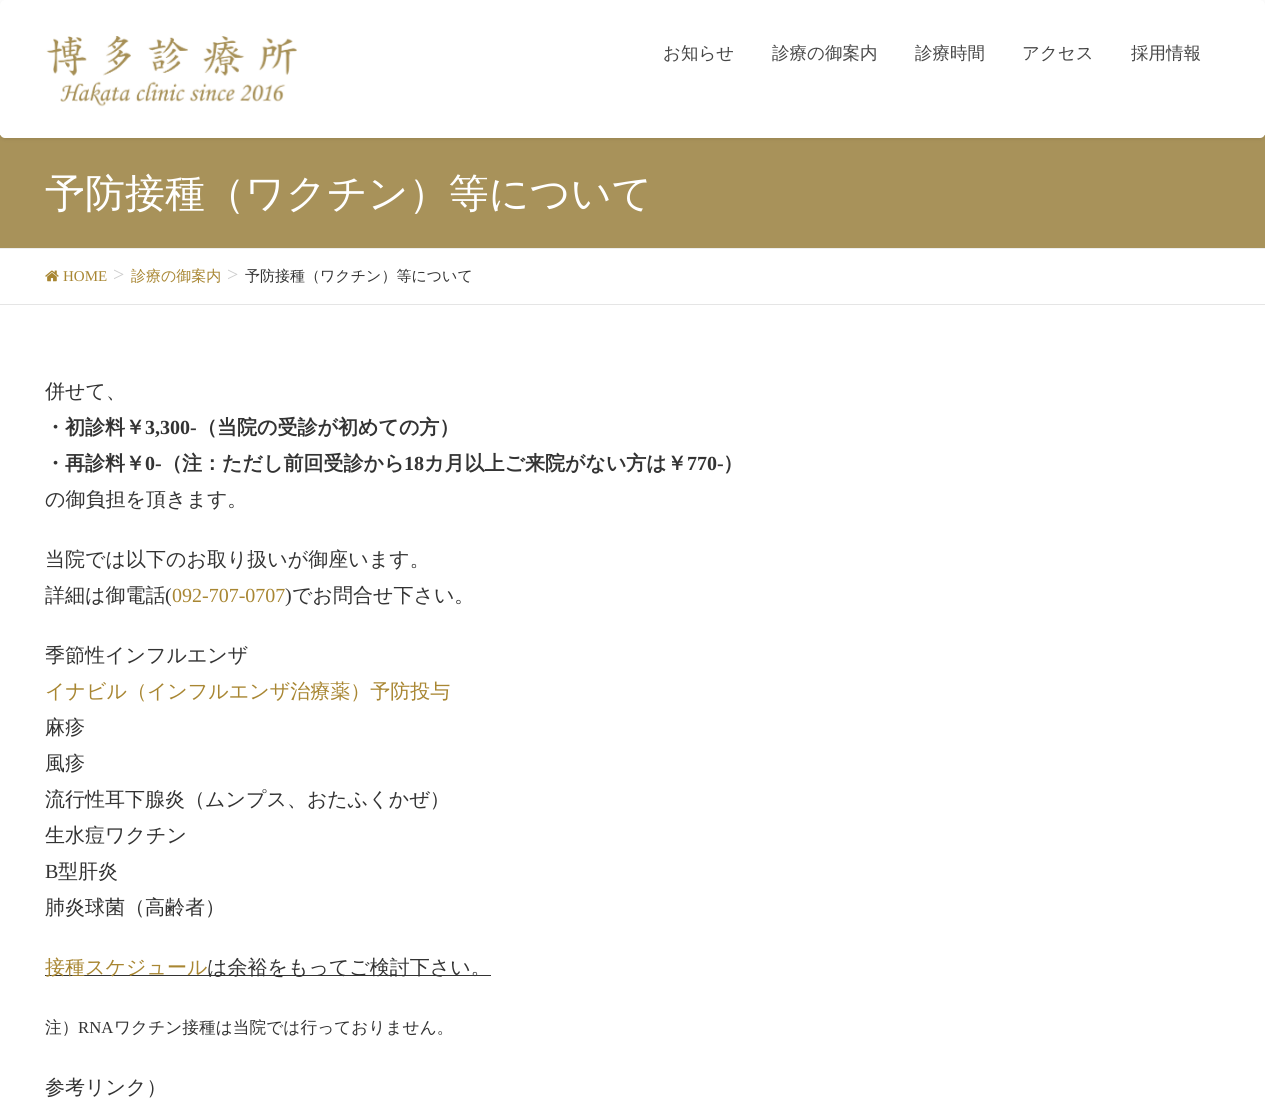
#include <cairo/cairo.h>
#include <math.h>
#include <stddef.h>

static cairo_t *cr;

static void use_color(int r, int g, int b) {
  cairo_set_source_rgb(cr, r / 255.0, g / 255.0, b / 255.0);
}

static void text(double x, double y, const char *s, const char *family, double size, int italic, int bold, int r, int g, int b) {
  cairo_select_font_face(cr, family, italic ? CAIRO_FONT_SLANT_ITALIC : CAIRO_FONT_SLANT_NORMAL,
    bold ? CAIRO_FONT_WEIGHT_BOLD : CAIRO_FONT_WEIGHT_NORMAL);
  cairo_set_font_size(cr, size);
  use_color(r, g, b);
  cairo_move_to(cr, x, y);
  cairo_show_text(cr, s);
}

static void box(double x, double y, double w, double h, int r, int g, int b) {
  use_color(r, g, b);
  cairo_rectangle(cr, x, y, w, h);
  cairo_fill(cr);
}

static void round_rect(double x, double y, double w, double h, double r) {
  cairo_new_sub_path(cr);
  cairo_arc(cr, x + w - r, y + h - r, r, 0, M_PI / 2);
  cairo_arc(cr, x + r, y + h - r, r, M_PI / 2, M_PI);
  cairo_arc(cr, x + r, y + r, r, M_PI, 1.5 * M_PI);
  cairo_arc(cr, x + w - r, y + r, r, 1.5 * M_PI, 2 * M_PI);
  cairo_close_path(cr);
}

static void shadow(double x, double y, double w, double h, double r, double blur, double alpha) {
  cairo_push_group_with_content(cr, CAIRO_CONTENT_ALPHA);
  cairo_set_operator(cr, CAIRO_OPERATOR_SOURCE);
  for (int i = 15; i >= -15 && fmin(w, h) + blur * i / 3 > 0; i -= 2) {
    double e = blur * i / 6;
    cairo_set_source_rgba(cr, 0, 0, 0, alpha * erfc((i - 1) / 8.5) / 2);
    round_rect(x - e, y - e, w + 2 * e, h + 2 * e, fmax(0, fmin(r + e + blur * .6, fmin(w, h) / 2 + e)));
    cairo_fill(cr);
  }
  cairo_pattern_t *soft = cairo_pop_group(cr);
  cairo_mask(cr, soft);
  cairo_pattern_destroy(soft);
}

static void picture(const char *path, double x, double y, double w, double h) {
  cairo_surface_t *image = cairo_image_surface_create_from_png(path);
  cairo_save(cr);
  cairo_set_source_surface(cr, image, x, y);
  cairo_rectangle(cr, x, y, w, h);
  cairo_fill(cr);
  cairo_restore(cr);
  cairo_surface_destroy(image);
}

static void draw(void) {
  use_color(255, 255, 255);
  cairo_paint(cr);
  box(0, 135, 1265, 113, 168, 146, 90);
  use_color(0, 0, 0);
  shadow(0, 1, 1265, 138, 5, 2, 0.1);
  use_color(255, 255, 255);
  round_rect(0, 0, 1265, 138, 5);
  cairo_fill(cr);
  picture("img_01.png", 46, 36, 251, 71);
  box(0, 248, 1265, 1, 238, 238, 238);
  box(0, 304, 1265, 1, 229, 229, 229);
  picture("img_02.png", 45, 270, 14, 12);
  box(45, 975, 446, 1, 51, 51, 51);
  text(663, 59, "お知らせ", "WenQuanYi Zen Hei Medium", 17.5, 0, 0, 70, 70, 70);
  text(772, 59, "診療の御案内", "WenQuanYi Zen Hei Medium", 17.5, 0, 0, 70, 70, 70);
  text(915, 59, "診療時間", "WenQuanYi Zen Hei Medium", 17.5, 0, 0, 70, 70, 70);
  text(1022, 59, "アクセス", "WenQuanYi Zen Hei Medium", 17.5, 0, 0, 70, 70, 70);
  text(1131, 59, "採用情報", "WenQuanYi Zen Hei Medium", 17.5, 0, 0, 70, 70, 70);
  text(45, 207, "予防接種（ワクチン）等について", "WenQuanYi Zen Hei Medium", 40, 0, 0, 255, 255, 255);
  text(63, 281, "HOME", "Liberation Serif", 15, 0, 0, 168, 134, 50);
  text(113, 281, ">", "Liberation Serif", 20, 0, 0, 204, 204, 204);
  text(131, 281, "診療の御案内", "WenQuanYi Zen Hei Medium", 15, 0, 0, 168, 134, 50);
  text(227, 281, ">", "Liberation Serif", 20, 0, 0, 204, 204, 204);
  text(245, 281, "予防接種（ワクチン）等について", "WenQuanYi Zen Hei Medium", 15, 0, 0, 51, 51, 51);
  text(45, 398, "併せて、", "WenQuanYi Zen Hei Medium", 20, 0, 0, 51, 51, 51);
  text(45, 434, "・初診料￥", "WenQuanYi Zen Hei", 20, 0, 1, 51, 51, 51);
  text(145, 434, "3,300-", "Liberation Serif", 20, 0, 1, 51, 51, 51);
  text(197, 434, "（当院の受診が初めての方）", "WenQuanYi Zen Hei", 20, 0, 1, 51, 51, 51);
  text(45, 470, "・再診料￥", "WenQuanYi Zen Hei", 20, 0, 1, 51, 51, 51);
  text(145, 470, "0-", "Liberation Serif", 20, 0, 1, 51, 51, 51);
  text(162, 470, "（注：ただし前回受診から", "WenQuanYi Zen Hei", 20, 0, 1, 51, 51, 51);
  text(404, 470, "18", "Liberation Serif", 20, 0, 1, 51, 51, 51);
  text(424, 470, "カ月以上ご来院がない方は￥", "WenQuanYi Zen Hei", 20, 0, 1, 51, 51, 51);
  text(687, 470, "770-", "Liberation Serif", 20, 0, 1, 51, 51, 51);
  text(723, 470, "）", "WenQuanYi Zen Hei", 20, 0, 1, 51, 51, 51);
  text(45, 506, "の御負担を頂きます。", "WenQuanYi Zen Hei Medium", 20, 0, 0, 51, 51, 51);
  text(45, 566, "当院では以下のお取り扱いが御座います。", "WenQuanYi Zen Hei Medium", 20, 0, 0, 51, 51, 51);
  text(45, 602, "詳細は御電話", "WenQuanYi Zen Hei Medium", 20, 0, 0, 51, 51, 51);
  text(165, 602, "(", "Liberation Serif", 20, 0, 0, 51, 51, 51);
  text(172, 602, "092-707-0707", "Liberation Serif", 20, 0, 0, 168, 134, 50);
  text(285, 602, ")", "Liberation Serif", 20, 0, 0, 51, 51, 51);
  text(292, 602, "でお問合せ下さい。", "WenQuanYi Zen Hei Medium", 20, 0, 0, 51, 51, 51);
  text(45, 662, "季節性インフルエンザ", "WenQuanYi Zen Hei Medium", 20, 0, 0, 51, 51, 51);
  text(45, 698, "イナビル（インフルエンザ治療薬）予防投与", "WenQuanYi Zen Hei Medium", 20, 0, 0, 168, 134, 50);
  text(45, 734, "麻疹", "WenQuanYi Zen Hei Medium", 20, 0, 0, 51, 51, 51);
  text(45, 770, "風疹", "WenQuanYi Zen Hei Medium", 20, 0, 0, 51, 51, 51);
  text(45, 806, "流行性耳下腺炎（ムンプス、おたふくかぜ）", "WenQuanYi Zen Hei Medium", 20, 0, 0, 51, 51, 51);
  text(45, 842, "生水痘ワクチン", "WenQuanYi Zen Hei Medium", 20, 0, 0, 51, 51, 51);
  text(45, 878, "B", "Liberation Serif", 20, 0, 0, 51, 51, 51);
  text(58, 878, "型肝炎", "WenQuanYi Zen Hei Medium", 20, 0, 0, 51, 51, 51);
  text(45, 914, "肺炎球菌（高齢者）", "WenQuanYi Zen Hei Medium", 20, 0, 0, 51, 51, 51);
  text(45, 974, "接種スケジュール", "WenQuanYi Zen Hei Medium", 20, 0, 0, 168, 134, 50);
  text(207, 974, "は余裕をもってご検討下さい。", "WenQuanYi Zen Hei Medium", 20, 0, 0, 51, 51, 51);
  text(45, 1033, "注）", "WenQuanYi Zen Hei Medium", 16.7, 0, 0, 51, 51, 51);
  text(78, 1033, "RNA", "Liberation Serif", 16.7, 0, 0, 51, 51, 51);
  text(114, 1033, "ワクチン接種は当院では行っておりません。", "WenQuanYi Zen Hei Medium", 16.7, 0, 0, 51, 51, 51);
  text(45, 1094, "参考リンク）", "WenQuanYi Zen Hei Medium", 20, 0, 0, 51, 51, 51);
}

int main(void) {
  cairo_surface_t *surface = cairo_image_surface_create(CAIRO_FORMAT_RGB24, 1265, 1118);
  cr = cairo_create(surface);
  cairo_font_options_t *options = cairo_font_options_create();
  cairo_font_options_set_hint_metrics(options, CAIRO_HINT_METRICS_OFF);
  cairo_font_options_set_hint_style(options, CAIRO_HINT_STYLE_NONE);
  cairo_set_font_options(cr, options);
  cairo_set_miter_limit(cr, 4);
  draw();
  cairo_surface_write_to_png(surface, "out.png");
  cairo_font_options_destroy(options);
  cairo_destroy(cr);
  cairo_surface_destroy(surface);
  return 0;
}
